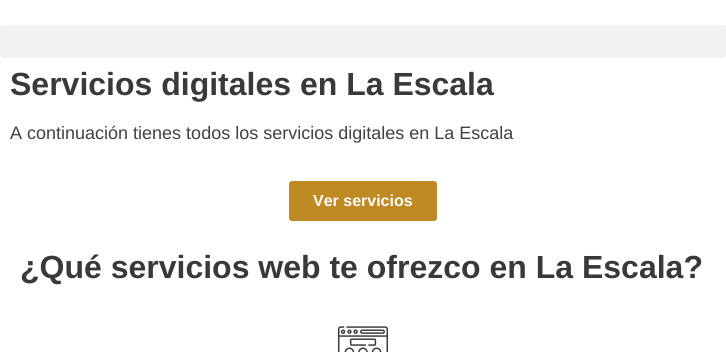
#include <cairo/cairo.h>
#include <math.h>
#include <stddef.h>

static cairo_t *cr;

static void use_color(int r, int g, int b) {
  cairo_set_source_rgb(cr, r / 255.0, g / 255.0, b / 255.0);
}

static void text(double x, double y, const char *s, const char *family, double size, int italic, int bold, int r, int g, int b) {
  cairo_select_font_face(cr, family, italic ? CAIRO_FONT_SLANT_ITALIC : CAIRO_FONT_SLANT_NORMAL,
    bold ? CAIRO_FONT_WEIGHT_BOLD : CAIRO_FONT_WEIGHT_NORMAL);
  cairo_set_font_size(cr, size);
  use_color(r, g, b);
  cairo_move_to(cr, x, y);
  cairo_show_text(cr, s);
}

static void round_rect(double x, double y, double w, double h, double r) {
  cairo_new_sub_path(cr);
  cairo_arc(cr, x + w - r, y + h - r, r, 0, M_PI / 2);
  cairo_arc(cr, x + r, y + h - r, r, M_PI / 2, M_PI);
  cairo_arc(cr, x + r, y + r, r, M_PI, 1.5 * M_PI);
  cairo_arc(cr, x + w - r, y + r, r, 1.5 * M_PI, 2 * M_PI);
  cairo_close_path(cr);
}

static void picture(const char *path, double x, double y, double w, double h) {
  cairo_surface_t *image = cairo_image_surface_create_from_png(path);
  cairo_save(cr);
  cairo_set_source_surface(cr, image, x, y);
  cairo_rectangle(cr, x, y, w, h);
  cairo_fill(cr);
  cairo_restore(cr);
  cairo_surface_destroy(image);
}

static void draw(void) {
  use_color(255, 255, 255);
  cairo_paint(cr);
  use_color(242, 242, 242);
  round_rect(0, 25, 726, 33, 3);
  cairo_fill(cr);
  use_color(191, 137, 36);
  round_rect(289, 181, 148, 40, 3);
  cairo_fill(cr);
  picture("img_01.png", 338, 326, 50, 26);
  text(10, 95, "Servicios digitales en La Escala", "Liberation Sans", 32, 0, 1, 58, 57, 55);
  text(10, 139, "A continuación tienes todos los servicios digitales en La Escala", "Liberation Sans", 18, 0, 0, 65, 65, 65);
  text(313, 206, "Ver servicios", "Liberation Sans", 16, 0, 1, 255, 255, 255);
  text(20, 278, "¿Qué servicios web te ofrezco en La Escala?", "Liberation Sans", 32, 0, 1, 58, 57, 55);
}

int main(void) {
  cairo_surface_t *surface = cairo_image_surface_create(CAIRO_FORMAT_RGB24, 726, 352);
  cr = cairo_create(surface);
  cairo_font_options_t *options = cairo_font_options_create();
  cairo_font_options_set_hint_metrics(options, CAIRO_HINT_METRICS_OFF);
  cairo_font_options_set_hint_style(options, CAIRO_HINT_STYLE_NONE);
  cairo_set_font_options(cr, options);
  cairo_set_miter_limit(cr, 4);
  draw();
  cairo_surface_write_to_png(surface, "out.png");
  cairo_font_options_destroy(options);
  cairo_destroy(cr);
  cairo_surface_destroy(surface);
  return 0;
}
